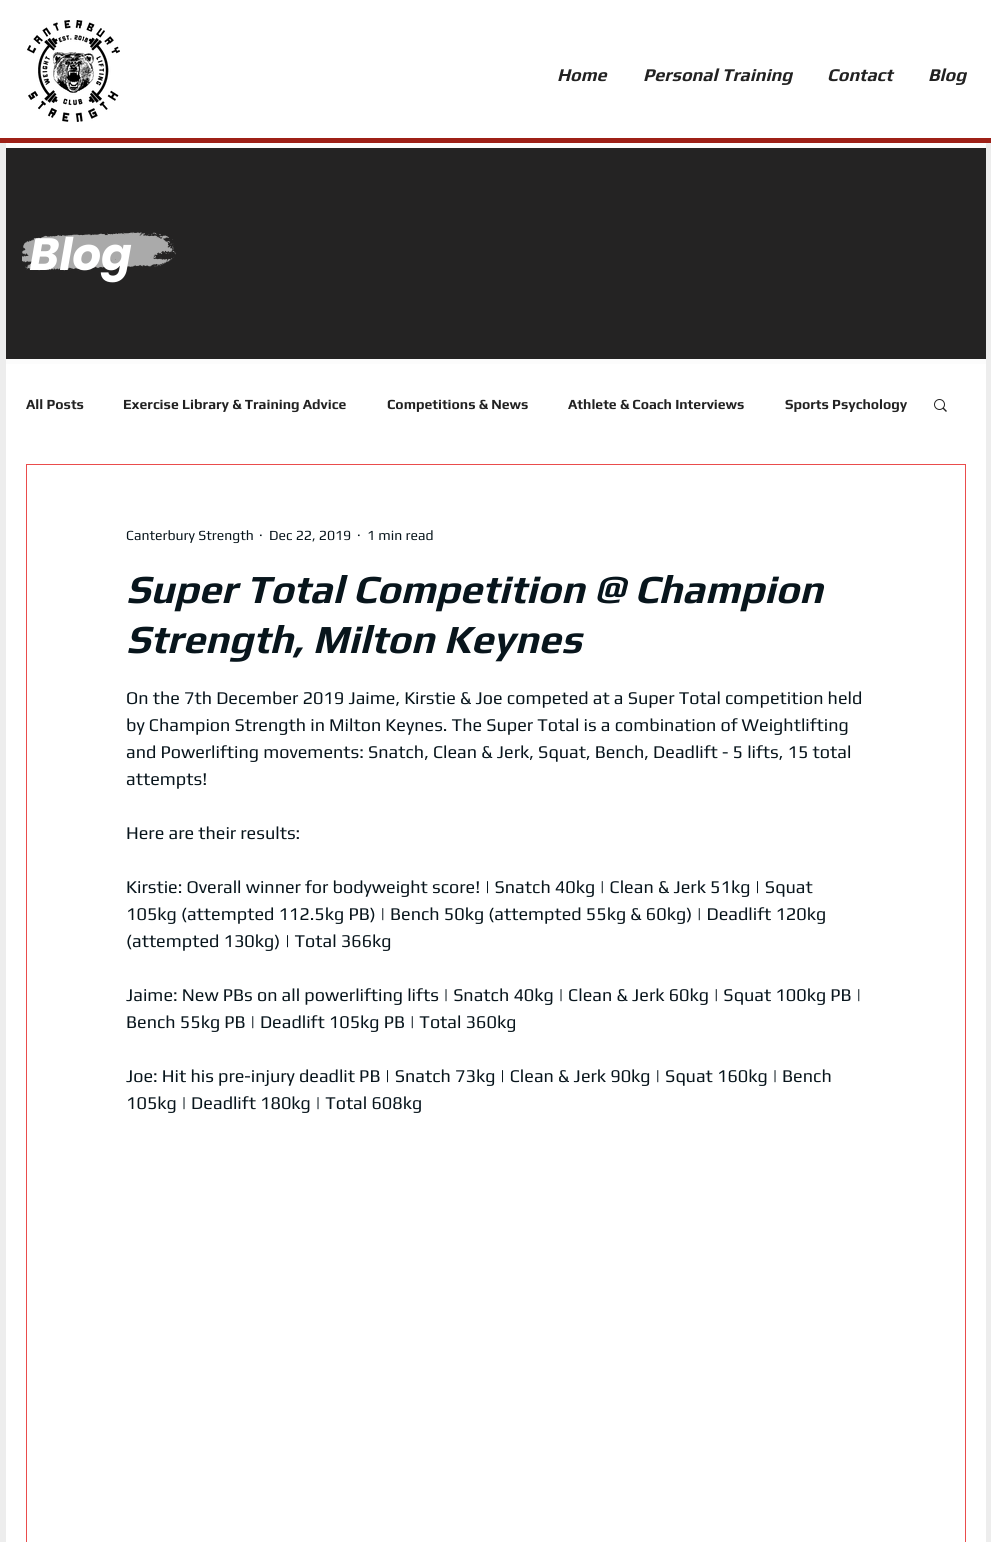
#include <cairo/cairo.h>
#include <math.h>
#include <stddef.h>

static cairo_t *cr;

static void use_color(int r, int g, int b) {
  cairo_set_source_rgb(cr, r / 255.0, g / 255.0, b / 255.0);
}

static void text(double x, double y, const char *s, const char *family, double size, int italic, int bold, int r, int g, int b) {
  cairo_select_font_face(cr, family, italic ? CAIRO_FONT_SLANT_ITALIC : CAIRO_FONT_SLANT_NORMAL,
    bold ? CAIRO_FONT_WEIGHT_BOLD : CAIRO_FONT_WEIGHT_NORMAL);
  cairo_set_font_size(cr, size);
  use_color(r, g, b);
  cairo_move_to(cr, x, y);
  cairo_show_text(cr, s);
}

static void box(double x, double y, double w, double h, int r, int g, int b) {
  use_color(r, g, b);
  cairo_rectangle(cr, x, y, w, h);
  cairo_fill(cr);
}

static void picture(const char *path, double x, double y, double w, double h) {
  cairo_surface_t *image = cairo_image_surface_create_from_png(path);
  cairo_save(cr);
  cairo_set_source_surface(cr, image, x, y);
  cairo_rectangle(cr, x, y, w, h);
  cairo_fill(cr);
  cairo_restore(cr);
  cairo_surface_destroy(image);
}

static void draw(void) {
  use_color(237, 237, 237);
  cairo_paint(cr);
  box(0, 0, 991, 138, 255, 255, 255);
  box(0, 138, 991, 5, 158, 32, 23);
  picture("img_01.png", 27, 20, 93, 102);
  box(6, 143, 980, 221, 252, 252, 252);
  box(6, 148, 980, 211, 36, 35, 35);
  picture("img_02.png", 22, 232, 154, 39);
  box(6, 364, 980, 1178, 255, 255, 255);
  picture("img_03.png", 934, 399, 13, 13);
  cairo_rectangle(cr, 26.5, 464.5, 939, 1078);
  use_color(234, 76, 76);
  cairo_set_line_width(cr, 1);
  cairo_stroke(cr);
  text(557, 81, "Home", "Play", 18, 1, 1, 34, 34, 34);
  text(643, 81, "Personal Training", "Play", 18, 1, 1, 34, 34, 34);
  text(827, 81, "Contact", "Play", 18, 1, 1, 34, 34, 34);
  text(928, 81, "Blog", "Play", 18, 1, 1, 34, 34, 34);
  text(30, 270, "Blog", "Poppins", 45, 1, 1, 255, 255, 255);
  text(26, 409, "All Posts", "Play", 14, 0, 1, 34, 34, 34);
  text(123, 409, "Exercise Library & Training Advice", "Play", 14, 0, 1, 34, 34, 34);
  text(387, 409, "Competitions & News", "Play", 14, 0, 1, 34, 34, 34);
  text(568, 409, "Athlete & Coach Interviews", "Play", 14, 0, 1, 34, 34, 34);
  text(785, 409, "Sports Psychology", "Play", 14, 0, 1, 34, 34, 34);
  text(126, 540, "Canterbury Strength", "Play", 14, 0, 0, 8, 21, 28);
  text(259, 540, "·", "Play", 14, 0, 0, 8, 21, 28);
  text(269, 540, "Dec 22, 2019", "Play", 14, 0, 0, 8, 21, 28);
  text(357, 540, "·", "Play", 14, 0, 0, 8, 21, 28);
  text(367, 540, "1 min read", "Play", 14, 0, 0, 8, 21, 28);
  text(126, 603, "Super Total Competition @ Champion", "Play", 40, 1, 1, 8, 21, 28);
  text(126, 653, "Strength, Milton Keynes", "Play", 40, 1, 1, 8, 21, 28);
  text(126, 704, "On the 7th December 2019 Jaime, Kirstie & Joe competed at a Super Total competition held", "Play", 18, 0, 0, 8, 21, 28);
  text(126, 731, "by Champion Strength in Milton Keynes. The Super Total is a combination of Weightlifting", "Play", 18, 0, 0, 8, 21, 28);
  text(126, 758, "and Powerlifting movements: Snatch, Clean & Jerk, Squat, Bench, Deadlift - 5 lifts, 15 total", "Play", 18, 0, 0, 8, 21, 28);
  text(126, 785, "attempts!", "Play", 18, 0, 0, 8, 21, 28);
  text(126, 839, "Here are their results:", "Play", 18, 0, 0, 8, 21, 28);
  text(126, 893, "Kirstie: Overall winner for bodyweight score! | Snatch 40kg | Clean & Jerk 51kg | Squat", "Play", 18, 0, 0, 8, 21, 28);
  text(126, 920, "105kg (attempted 112.5kg PB) | Bench 50kg (attempted 55kg & 60kg) | Deadlift 120kg", "Play", 18, 0, 0, 8, 21, 28);
  text(126, 947, "(attempted 130kg) | Total 366kg", "Play", 18, 0, 0, 8, 21, 28);
  text(126, 1001, "Jaime: New PBs on all powerlifting lifts | Snatch 40kg | Clean & Jerk 60kg | Squat 100kg PB |", "Play", 18, 0, 0, 8, 21, 28);
  text(126, 1028, "Bench 55kg PB | Deadlift 105kg PB | Total 360kg", "Play", 18, 0, 0, 8, 21, 28);
  text(126, 1082, "Joe: Hit his pre-injury deadlit PB | Snatch 73kg | Clean & Jerk 90kg | Squat 160kg | Bench", "Play", 18, 0, 0, 8, 21, 28);
  text(126, 1109, "105kg | Deadlift 180kg | Total 608kg", "Play", 18, 0, 0, 8, 21, 28);
}

int main(void) {
  cairo_surface_t *surface = cairo_image_surface_create(CAIRO_FORMAT_RGB24, 991, 1542);
  cr = cairo_create(surface);
  cairo_font_options_t *options = cairo_font_options_create();
  cairo_font_options_set_hint_metrics(options, CAIRO_HINT_METRICS_OFF);
  cairo_font_options_set_hint_style(options, CAIRO_HINT_STYLE_NONE);
  cairo_set_font_options(cr, options);
  cairo_set_miter_limit(cr, 4);
  draw();
  cairo_surface_write_to_png(surface, "out.png");
  cairo_font_options_destroy(options);
  cairo_destroy(cr);
  cairo_surface_destroy(surface);
  return 0;
}
